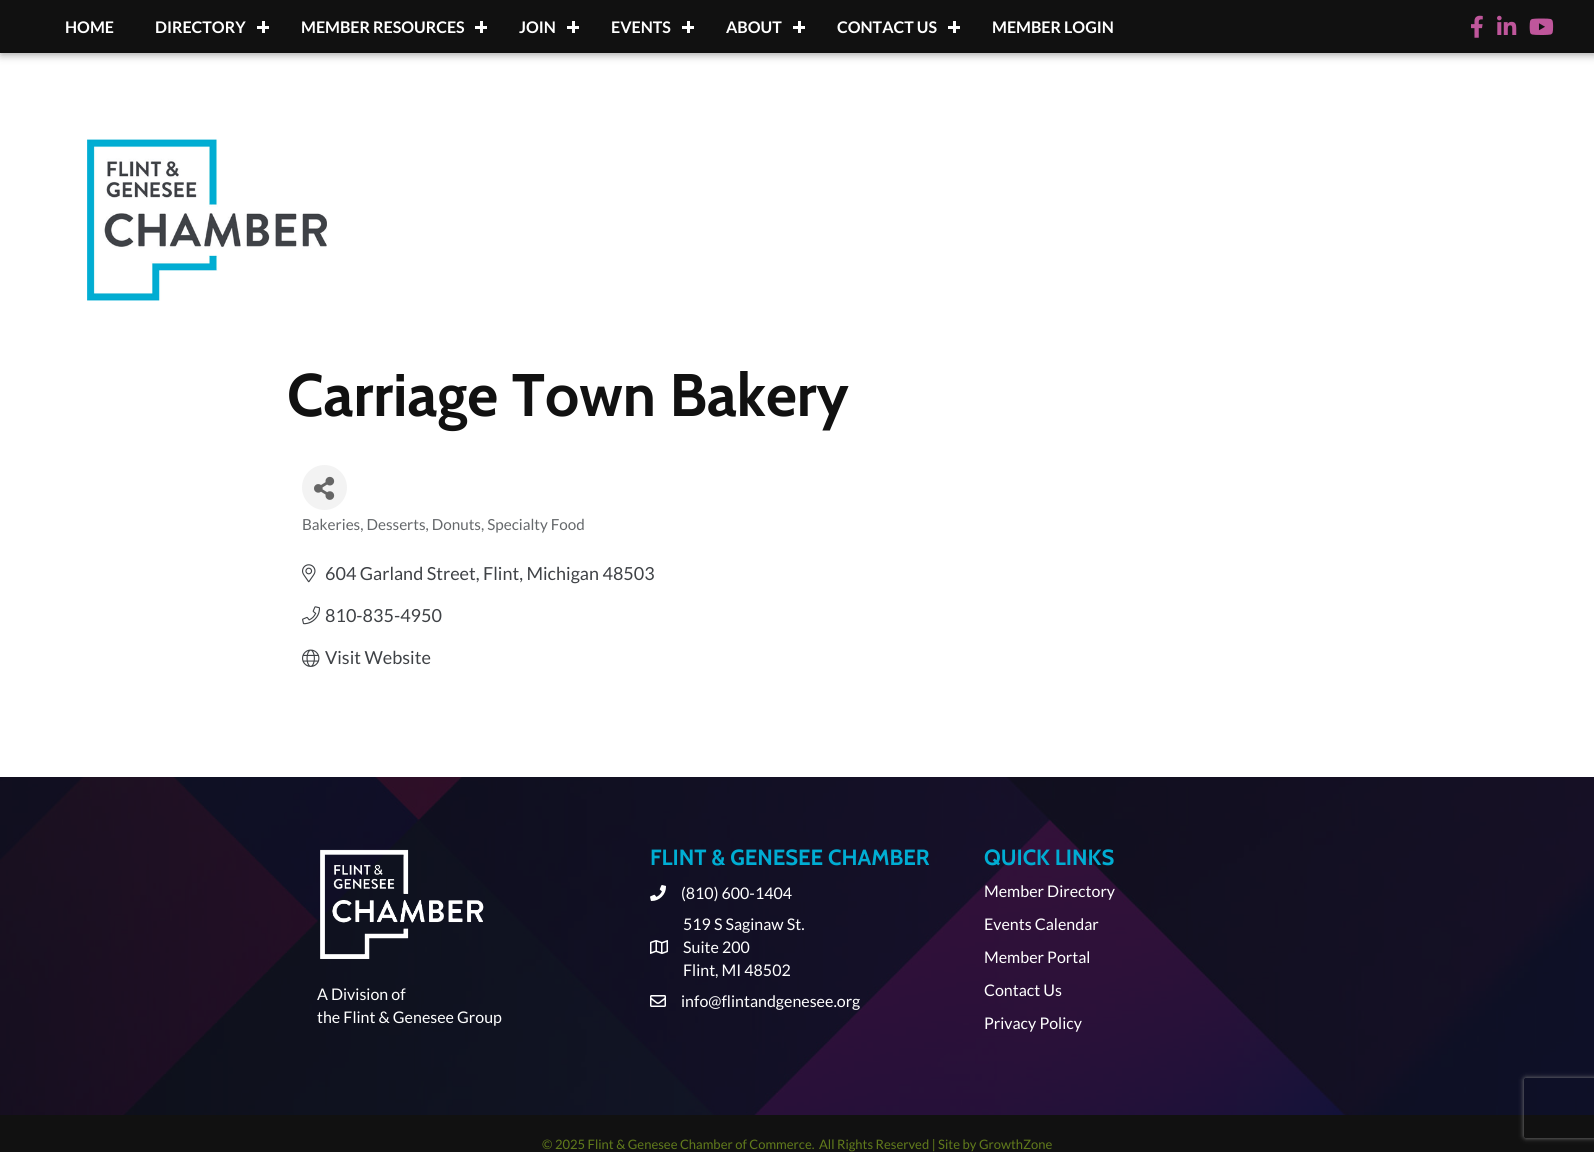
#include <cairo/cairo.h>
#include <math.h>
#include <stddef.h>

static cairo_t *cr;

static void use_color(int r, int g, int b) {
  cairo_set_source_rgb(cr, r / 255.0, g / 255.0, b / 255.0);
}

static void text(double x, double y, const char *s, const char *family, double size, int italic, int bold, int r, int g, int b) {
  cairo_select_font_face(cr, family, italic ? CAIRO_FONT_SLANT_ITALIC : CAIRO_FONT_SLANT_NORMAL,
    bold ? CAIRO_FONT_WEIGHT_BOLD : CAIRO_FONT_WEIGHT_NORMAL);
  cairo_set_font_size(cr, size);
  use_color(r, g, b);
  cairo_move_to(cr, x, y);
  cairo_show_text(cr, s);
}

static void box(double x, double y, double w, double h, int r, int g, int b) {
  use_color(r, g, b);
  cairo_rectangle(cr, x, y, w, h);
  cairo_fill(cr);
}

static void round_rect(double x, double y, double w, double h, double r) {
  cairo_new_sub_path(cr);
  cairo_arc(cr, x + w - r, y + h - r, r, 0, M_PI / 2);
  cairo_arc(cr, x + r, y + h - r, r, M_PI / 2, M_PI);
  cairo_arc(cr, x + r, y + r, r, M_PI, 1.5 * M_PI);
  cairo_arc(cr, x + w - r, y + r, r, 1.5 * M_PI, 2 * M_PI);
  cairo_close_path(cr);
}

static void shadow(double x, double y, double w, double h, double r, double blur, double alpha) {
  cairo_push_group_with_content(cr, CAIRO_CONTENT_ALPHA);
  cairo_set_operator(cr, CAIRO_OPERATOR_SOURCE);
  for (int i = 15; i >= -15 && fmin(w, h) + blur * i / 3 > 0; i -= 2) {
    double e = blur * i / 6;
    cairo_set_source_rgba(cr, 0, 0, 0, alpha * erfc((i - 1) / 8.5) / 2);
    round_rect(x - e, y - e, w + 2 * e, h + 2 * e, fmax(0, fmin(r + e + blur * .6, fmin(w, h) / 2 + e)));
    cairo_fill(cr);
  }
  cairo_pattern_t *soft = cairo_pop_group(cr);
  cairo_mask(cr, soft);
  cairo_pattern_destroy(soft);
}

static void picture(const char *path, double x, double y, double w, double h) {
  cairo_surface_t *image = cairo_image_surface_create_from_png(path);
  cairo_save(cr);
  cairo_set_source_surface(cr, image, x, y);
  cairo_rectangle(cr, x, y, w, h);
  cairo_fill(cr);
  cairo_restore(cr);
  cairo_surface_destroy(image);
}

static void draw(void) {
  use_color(255, 255, 255);
  cairo_paint(cr);
  use_color(153, 153, 153);
  shadow(1, 1, 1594, 53, 0, 4.5, 1);
  box(0, 0, 1594, 53, 17, 17, 17);
  box(257, 26, 12, 3, 255, 255, 255);
  box(262, 21, 3, 12, 255, 255, 255);
  box(475, 26, 12, 3, 255, 255, 255);
  box(480, 21, 3, 12, 255, 255, 255);
  box(567, 26, 12, 3, 255, 255, 255);
  box(572, 21, 3, 12, 255, 255, 255);
  box(682, 26, 12, 3, 255, 255, 255);
  box(687, 21, 3, 12, 255, 255, 255);
  box(793, 26, 12, 3, 255, 255, 255);
  box(798, 21, 3, 12, 255, 255, 255);
  box(948, 26, 12, 3, 255, 255, 255);
  box(953, 21, 3, 12, 255, 255, 255);
  picture("img_01.png", 1471, 15, 12, 23);
  picture("img_02.png", 1497, 15, 20, 20);
  picture("img_03.png", 1529, 18, 25, 17);
  picture("img_04.png", 87, 139, 240, 162);
  use_color(243, 243, 243);
  cairo_arc(cr, 324.5, 487.5, 22.5, 0, 2 * M_PI);
  cairo_fill(cr);
  picture("img_05.png", 314, 476, 21, 24);
  picture("img_06.png", 302, 564, 14, 19);
  picture("img_07.png", 302, 606, 18, 19);
  picture("img_08.png", 302, 649, 18, 18);
  picture("img_09.png", 0, 777, 1594, 338);
  picture("img_10.png", 320, 849, 164, 110);
  picture("img_11.png", 650, 885, 16, 16);
  picture("img_12.png", 650, 940, 18, 14);
  picture("img_13.png", 650, 995, 16, 12);
  box(0, 1115, 1594, 37, 17, 17, 17);
  cairo_save(cr);
  cairo_set_fill_rule(cr, CAIRO_FILL_RULE_EVEN_ODD);
  cairo_new_path(cr);
  cairo_move_to(cr, 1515, 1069);
  cairo_line_to(cr, 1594, 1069);
  cairo_line_to(cr, 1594, 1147);
  cairo_line_to(cr, 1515, 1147);
  cairo_close_path(cr);
  cairo_move_to(cr, 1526, 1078);
  cairo_line_to(cr, 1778, 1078);
  cairo_curve_to(cr, 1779, 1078, 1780, 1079, 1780, 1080);
  cairo_line_to(cr, 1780, 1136);
  cairo_curve_to(cr, 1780, 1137, 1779, 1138, 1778, 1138);
  cairo_line_to(cr, 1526, 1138);
  cairo_curve_to(cr, 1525, 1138, 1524, 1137, 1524, 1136);
  cairo_line_to(cr, 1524, 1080);
  cairo_curve_to(cr, 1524, 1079, 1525, 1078, 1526, 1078);
  cairo_close_path(cr);
  cairo_clip(cr);
  use_color(128, 128, 128);
  shadow(1524, 1078, 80, 60, 2, 2.5, 1);
  cairo_restore(cr);
  text(65, 33, "HOME", "Lato", 16, 0, 1, 255, 255, 255);
  text(155, 33, "DIRECTORY", "Lato", 16, 0, 1, 255, 255, 255);
  text(301, 33, "MEMBER RESOURCES", "Lato", 16, 0, 1, 255, 255, 255);
  text(519, 33, "JOIN", "Lato", 16, 0, 1, 255, 255, 255);
  text(611, 33, "EVENTS", "Lato", 16, 0, 1, 255, 255, 255);
  text(726, 33, "ABOUT", "Lato", 16, 0, 1, 255, 255, 255);
  text(837, 33, "CONTACT US", "Lato", 16, 0, 1, 255, 255, 255);
  text(992, 33, "MEMBER LOGIN", "Lato", 16, 0, 1, 255, 255, 255);
  text(287, 416, "Carriage Town Bakery", "Cabin", 60, 0, 1, 17, 17, 17);
  text(302, 530, "Bakeries, Desserts, Donuts, Specialty Food", "Lato", 15.25, 0, 0, 101, 104, 107);
  text(325, 580, "604 Garland Street, Flint, Michigan 48503", "Lato", 18, 0, 0, 63, 66, 70);
  text(325, 622, "810-835-4950", "Lato", 18, 0, 0, 63, 66, 70);
  text(325, 664, "Visit Website", "Lato", 18, 0, 0, 63, 66, 70);
  text(317, 1000, "A Division of", "Lato", 16, 0, 0, 255, 255, 255);
  text(317, 1023, "the Flint & Genesee Group", "Lato", 16, 0, 0, 255, 255, 255);
  text(650, 865, "FLINT & GENESEE CHAMBER", "Cabin", 22, 0, 1, 0, 173, 211);
  text(681, 899, "(810) 600-1404", "Lato", 16, 0, 0, 255, 255, 255);
  text(683, 930, "519 S Saginaw St.", "Lato", 16, 0, 0, 255, 255, 255);
  text(683, 953, "Suite 200", "Lato", 16, 0, 0, 255, 255, 255);
  text(683, 976, "Flint, MI 48502", "Lato", 16, 0, 0, 255, 255, 255);
  text(681, 1007, "info@flintandgenesee.org", "Lato", 16, 0, 0, 255, 255, 255);
  text(984, 865, "QUICK LINKS", "Cabin", 22, 0, 1, 0, 173, 211);
  text(984, 897, "Member Directory", "Lato", 16, 0, 0, 255, 255, 255);
  text(984, 930, "Events Calendar", "Lato", 16, 0, 0, 255, 255, 255);
  text(984, 963, "Member Portal", "Lato", 16, 0, 0, 255, 255, 255);
  text(984, 996, "Contact Us", "Lato", 16, 0, 0, 255, 255, 255);
  text(984, 1029, "Privacy Policy", "Lato", 16, 0, 0, 255, 255, 255);
  text(542, 1149, "© 2025 Flint & Genesee Chamber of Commerce.", "Lato", 13, 0, 0, 97, 123, 27);
  text(819, 1149, "All Rights Reserved | Site by GrowthZone", "Lato", 13, 0, 0, 97, 123, 27);
}

int main(void) {
  cairo_surface_t *surface = cairo_image_surface_create(CAIRO_FORMAT_RGB24, 1594, 1152);
  cr = cairo_create(surface);
  cairo_font_options_t *options = cairo_font_options_create();
  cairo_font_options_set_hint_metrics(options, CAIRO_HINT_METRICS_OFF);
  cairo_font_options_set_hint_style(options, CAIRO_HINT_STYLE_NONE);
  cairo_set_font_options(cr, options);
  cairo_set_miter_limit(cr, 4);
  draw();
  cairo_surface_write_to_png(surface, "out.png");
  cairo_font_options_destroy(options);
  cairo_destroy(cr);
  cairo_surface_destroy(surface);
  return 0;
}
